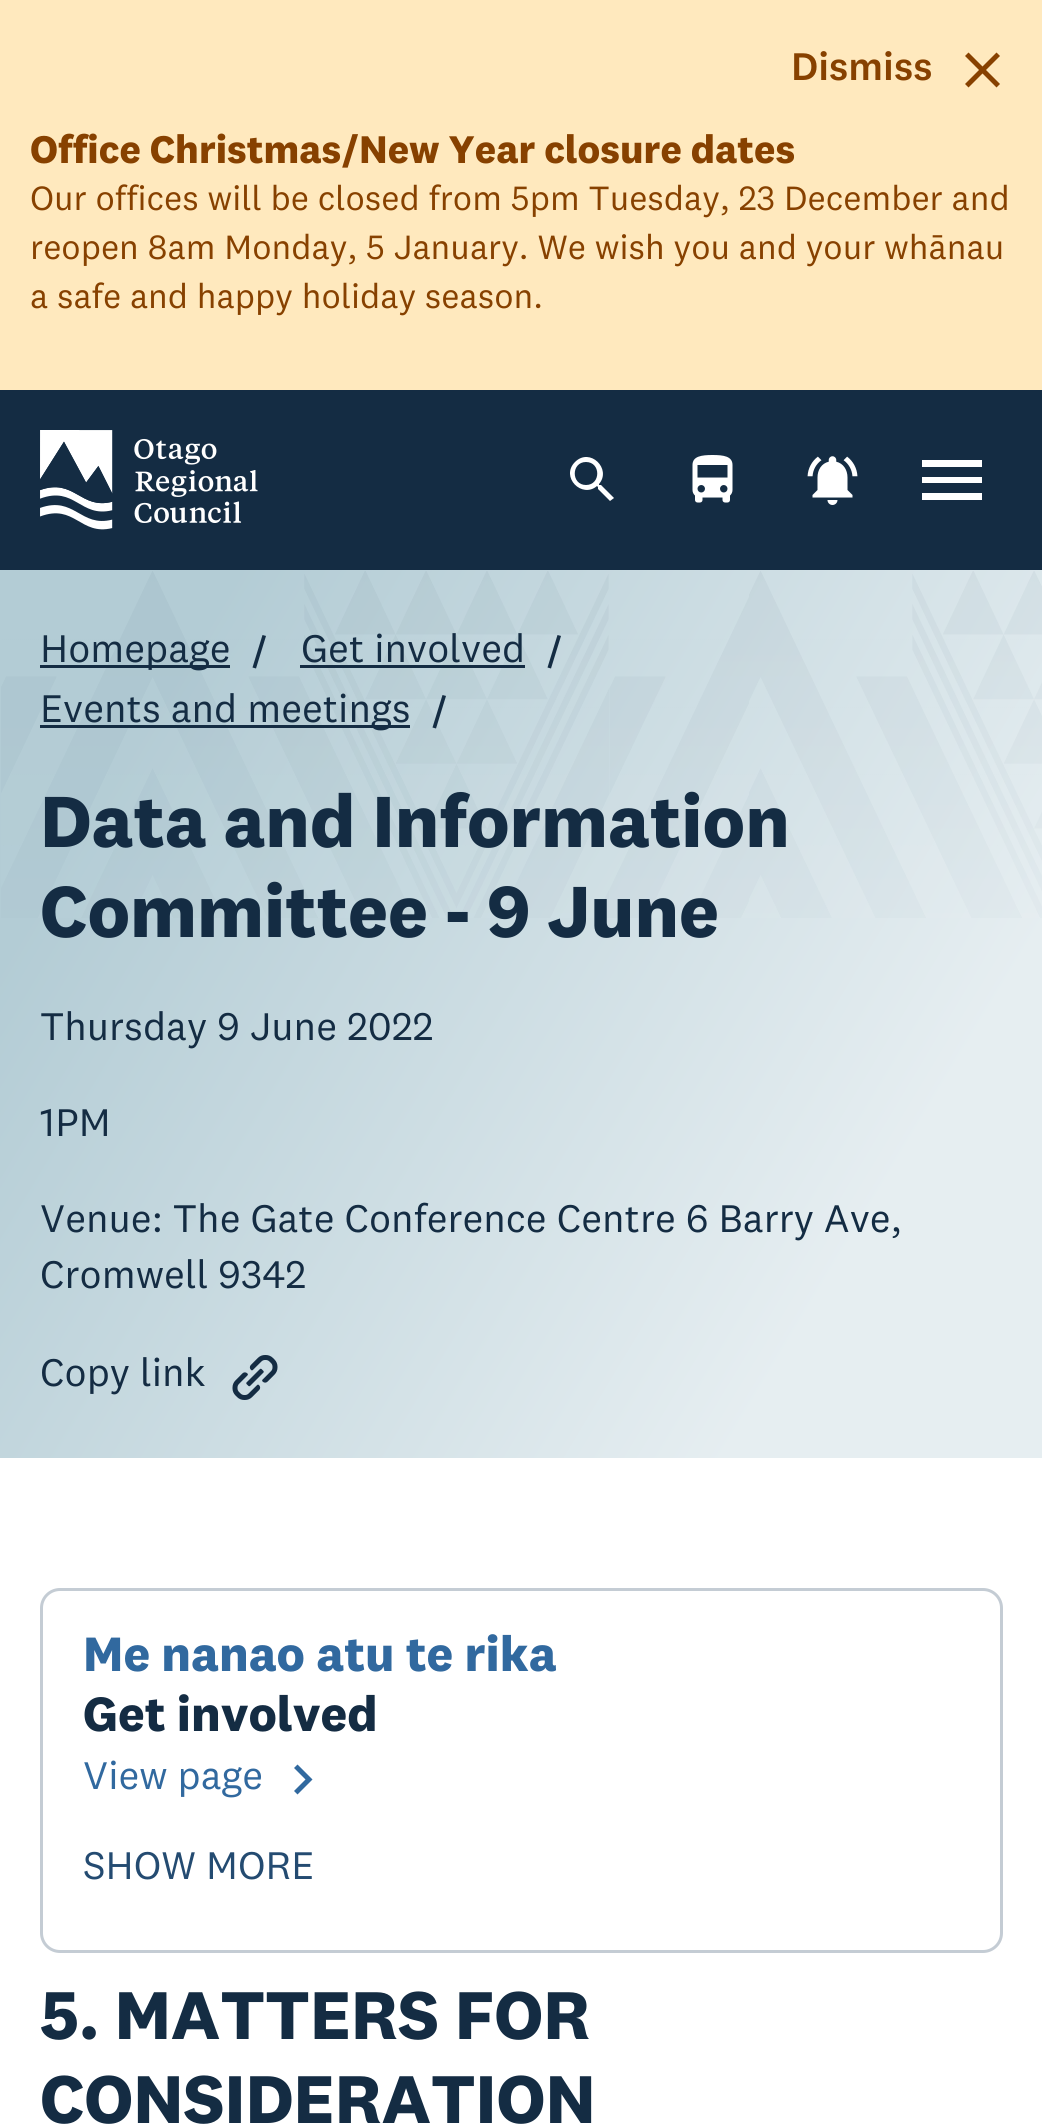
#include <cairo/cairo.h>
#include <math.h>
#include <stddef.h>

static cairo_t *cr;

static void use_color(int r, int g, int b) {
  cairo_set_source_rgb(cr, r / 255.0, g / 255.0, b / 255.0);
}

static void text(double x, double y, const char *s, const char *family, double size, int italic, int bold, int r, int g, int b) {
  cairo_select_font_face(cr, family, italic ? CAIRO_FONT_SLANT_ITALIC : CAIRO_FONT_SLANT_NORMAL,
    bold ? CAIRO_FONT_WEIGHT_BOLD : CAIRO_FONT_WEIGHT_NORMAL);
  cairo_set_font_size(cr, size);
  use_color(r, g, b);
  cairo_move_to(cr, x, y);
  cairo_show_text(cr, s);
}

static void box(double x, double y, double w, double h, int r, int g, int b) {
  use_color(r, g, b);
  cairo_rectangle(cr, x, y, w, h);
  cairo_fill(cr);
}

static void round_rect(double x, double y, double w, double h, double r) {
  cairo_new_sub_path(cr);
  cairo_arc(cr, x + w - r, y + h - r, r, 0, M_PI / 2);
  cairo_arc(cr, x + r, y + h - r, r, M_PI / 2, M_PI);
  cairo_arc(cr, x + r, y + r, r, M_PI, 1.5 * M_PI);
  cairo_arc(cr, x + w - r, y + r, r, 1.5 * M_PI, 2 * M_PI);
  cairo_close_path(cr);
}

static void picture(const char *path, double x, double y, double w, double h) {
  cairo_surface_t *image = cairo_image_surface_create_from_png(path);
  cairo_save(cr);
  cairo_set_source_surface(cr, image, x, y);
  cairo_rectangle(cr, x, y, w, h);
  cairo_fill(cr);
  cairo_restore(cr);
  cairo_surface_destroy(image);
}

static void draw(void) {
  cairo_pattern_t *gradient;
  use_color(255, 255, 255);
  cairo_paint(cr);
  box(0, 0, 1042, 390, 255, 233, 190);
  use_color(135, 65, 0);
  cairo_new_path(cr);
  cairo_move_to(cr, 1000, 56);
  cairo_line_to(cr, 996.5, 52.5);
  cairo_line_to(cr, 982.5, 66.5);
  cairo_line_to(cr, 968.5, 52.5);
  cairo_line_to(cr, 965, 56);
  cairo_line_to(cr, 979, 70);
  cairo_line_to(cr, 965, 84);
  cairo_line_to(cr, 968.5, 87.5);
  cairo_line_to(cr, 982.5, 73.5);
  cairo_line_to(cr, 996.5, 87.5);
  cairo_line_to(cr, 1000, 84);
  cairo_line_to(cr, 986, 70);
  cairo_close_path(cr);
  cairo_fill(cr);
  box(0, 390, 1042, 180, 20, 44, 67);
  picture("img_01.png", 40, 430, 218, 100);
  use_color(255, 255, 255);
  cairo_new_path(cr);
  cairo_move_to(cr, 601, 485);
  cairo_line_to(cr, 599, 485);
  cairo_line_to(cr, 599, 484);
  cairo_curve_to(cr, 612, 469, 590, 447, 575, 462);
  cairo_curve_to(cr, 560, 477, 582, 499, 597, 486);
  cairo_line_to(cr, 598, 487);
  cairo_line_to(cr, 598, 489);
  cairo_line_to(cr, 610, 501);
  cairo_line_to(cr, 614, 498);
  cairo_close_path(cr);
  cairo_move_to(cr, 586, 485);
  cairo_curve_to(cr, 571, 485, 571, 462, 586, 462);
  cairo_curve_to(cr, 601, 462, 601, 485, 586, 485);
  cairo_close_path(cr);
  cairo_fill(cr);
  picture("img_02.png", 692, 455, 41, 48);
  picture("img_03.png", 807, 456, 51, 49);
  cairo_new_path(cr);
  cairo_move_to(cr, 922, 500);
  cairo_line_to(cr, 982, 500);
  cairo_line_to(cr, 982, 493);
  cairo_line_to(cr, 922, 493);
  cairo_close_path(cr);
  cairo_move_to(cr, 922, 483);
  cairo_line_to(cr, 982, 483);
  cairo_line_to(cr, 982, 477);
  cairo_line_to(cr, 922, 477);
  cairo_close_path(cr);
  cairo_move_to(cr, 922, 460);
  cairo_line_to(cr, 922, 467);
  cairo_line_to(cr, 982, 467);
  cairo_line_to(cr, 982, 460);
  cairo_close_path(cr);
  cairo_fill(cr);
  gradient = cairo_pattern_create_linear(-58, 666, 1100, 1362);
  cairo_pattern_add_color_stop_rgba(gradient, 0.15, 0.702, 0.8, 0.835, 1);
  cairo_pattern_add_color_stop_rgba(gradient, 0.8, 0.902, 0.933, 0.945, 1);
  cairo_set_source(cr, gradient);
  cairo_pattern_destroy(gradient);
  cairo_rectangle(cr, 0, 570, 1042, 888);
  cairo_fill(cr);
  picture("img_04.png", 1, 571, 1041, 347);
  box(40, 665, 190, 3, 20, 44, 67);
  cairo_set_fill_rule(cr, CAIRO_FILL_RULE_EVEN_ODD);
  cairo_new_path(cr);
  cairo_move_to(cr, 252.5, 667.5);
  cairo_line_to(cr, 262.5, 635);
  cairo_line_to(cr, 266, 636);
  cairo_line_to(cr, 256, 668.5);
  cairo_close_path(cr);
  cairo_fill(cr);
  box(300, 665, 225, 3, 20, 44, 67);
  cairo_new_path(cr);
  cairo_move_to(cr, 547.5, 667.5);
  cairo_line_to(cr, 557.5, 635);
  cairo_line_to(cr, 561, 636);
  cairo_line_to(cr, 551, 668.5);
  cairo_close_path(cr);
  cairo_fill(cr);
  box(40, 725, 370, 3, 20, 44, 67);
  cairo_new_path(cr);
  cairo_move_to(cr, 432.5, 727.5);
  cairo_line_to(cr, 442.5, 695);
  cairo_line_to(cr, 446, 696);
  cairo_line_to(cr, 436, 728.5);
  cairo_close_path(cr);
  cairo_fill(cr);
  picture("img_05.png", 232, 1355, 46, 45);
  round_rect(41.5, 1589.5, 960, 362, 18.5);
  use_color(196, 204, 212);
  cairo_set_line_width(cr, 3);
  cairo_stroke(cr);
  use_color(49, 105, 159);
  cairo_set_fill_rule(cr, CAIRO_FILL_RULE_WINDING);
  cairo_new_path(cr);
  cairo_move_to(cr, 294, 1791);
  cairo_line_to(cr, 305.5, 1779.5);
  cairo_line_to(cr, 294, 1768);
  cairo_line_to(cr, 297.5, 1764.5);
  cairo_line_to(cr, 312.5, 1779.5);
  cairo_line_to(cr, 297.5, 1794.5);
  cairo_close_path(cr);
  cairo_fill(cr);
  text(791, 80, "Dismiss", "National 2 Medium", 40, 0, 0, 135, 65, 0);
  text(30, 163, "Office Christmas/New Year closure dates", "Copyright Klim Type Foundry", 40, 0, 1, 135, 65, 0);
  text(30, 210, "Our offices will be closed from 5pm Tuesday, 23 December and", "Copyright Klim Type Foundry", 35, 0, 0, 135, 65, 0);
  text(30, 259, "reopen 8am Monday, 5 January. We wish you and your whānau", "Copyright Klim Type Foundry", 35, 0, 0, 135, 65, 0);
  text(30, 308, "a safe and happy holiday season.", "Copyright Klim Type Foundry", 35, 0, 0, 135, 65, 0);
  text(40, 662, "Homepage", "Copyright Klim Type Foundry", 40, 0, 0, 20, 44, 67);
  text(301, 662, "Get involved", "Copyright Klim Type Foundry", 40, 0, 0, 20, 44, 67);
  text(40, 722, "Events and meetings", "Copyright Klim Type Foundry", 40, 0, 0, 20, 44, 67);
  text(40, 847, "Data and Information", "Copyright Klim Type Foundry", 75, 0, 1, 20, 44, 67);
  text(40, 937, "Committee - 9 June", "Copyright Klim Type Foundry", 75, 0, 1, 20, 44, 67);
  text(40, 1040, "Thursday 9 June 2022", "Copyright Klim Type Foundry", 40, 0, 0, 20, 44, 67);
  text(40, 1136, "1PM", "Copyright Klim Type Foundry", 40, 0, 0, 20, 44, 67);
  text(40, 1232, "Venue: The Gate Conference Centre 6 Barry Ave,", "Copyright Klim Type Foundry", 40, 0, 0, 20, 44, 67);
  text(40, 1288, "Cromwell 9342", "Copyright Klim Type Foundry", 40, 0, 0, 20, 44, 67);
  text(40, 1386, "Copy link", "Copyright Klim Type Foundry", 40, 0, 0, 20, 44, 67);
  text(83, 1671, "Me nanao atu te rika", "Copyright Klim Type Foundry", 50, 0, 1, 49, 105, 159);
  text(83, 1731, "Get involved", "Copyright Klim Type Foundry", 50, 0, 1, 20, 44, 67);
  text(83, 1789, "View page", "Copyright Klim Type Foundry", 40, 0, 0, 49, 105, 159);
  text(83, 1879, "SHOW MORE", "Copyright Klim Type Foundry", 40, 0, 0, 36, 75, 113);
  text(40, 2039, "5. MATTERS FOR", "Copyright Klim Type Foundry", 70, 0, 1, 20, 44, 67);
  text(40, 2123, "CONSIDERATION", "Copyright Klim Type Foundry", 70, 0, 1, 20, 44, 67);
}

int main(void) {
  cairo_surface_t *surface = cairo_image_surface_create(CAIRO_FORMAT_RGB24, 1042, 2127);
  cr = cairo_create(surface);
  cairo_font_options_t *options = cairo_font_options_create();
  cairo_font_options_set_hint_metrics(options, CAIRO_HINT_METRICS_OFF);
  cairo_font_options_set_hint_style(options, CAIRO_HINT_STYLE_NONE);
  cairo_set_font_options(cr, options);
  cairo_set_miter_limit(cr, 4);
  draw();
  cairo_surface_write_to_png(surface, "out.png");
  cairo_font_options_destroy(options);
  cairo_destroy(cr);
  cairo_surface_destroy(surface);
  return 0;
}
